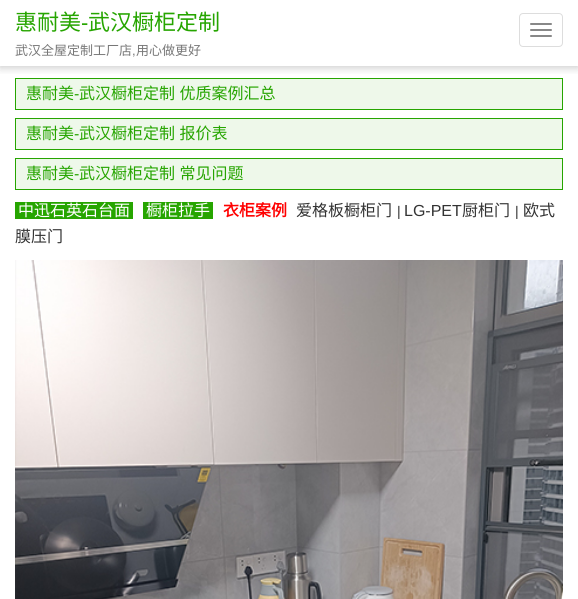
#include <cairo/cairo.h>
#include <math.h>
#include <stddef.h>

static cairo_t *cr;

static void use_color(int r, int g, int b) {
  cairo_set_source_rgb(cr, r / 255.0, g / 255.0, b / 255.0);
}

static void text(double x, double y, const char *s, const char *family, double size, int italic, int bold, int r, int g, int b) {
  cairo_select_font_face(cr, family, italic ? CAIRO_FONT_SLANT_ITALIC : CAIRO_FONT_SLANT_NORMAL,
    bold ? CAIRO_FONT_WEIGHT_BOLD : CAIRO_FONT_WEIGHT_NORMAL);
  cairo_set_font_size(cr, size);
  use_color(r, g, b);
  cairo_move_to(cr, x, y);
  cairo_show_text(cr, s);
}

static void spaced_text(double x, double y, const char *s, double letter, double word) {
  cairo_move_to(cr, x, y);
  while (*s) {
    char ch[5] = {0};
    int n = 0;
    do ch[n++] = *s++; while ((*s & 0xC0) == 0x80);
    cairo_show_text(cr, ch);
    cairo_rel_move_to(cr, letter + word * (*ch == ' '), 0);
  }
}

static void box(double x, double y, double w, double h, int r, int g, int b) {
  use_color(r, g, b);
  cairo_rectangle(cr, x, y, w, h);
  cairo_fill(cr);
}

static void round_rect(double x, double y, double w, double h, double r) {
  cairo_new_sub_path(cr);
  cairo_arc(cr, x + w - r, y + h - r, r, 0, M_PI / 2);
  cairo_arc(cr, x + r, y + h - r, r, M_PI / 2, M_PI);
  cairo_arc(cr, x + r, y + r, r, M_PI, 1.5 * M_PI);
  cairo_arc(cr, x + w - r, y + r, r, 1.5 * M_PI, 2 * M_PI);
  cairo_close_path(cr);
}

static void shadow(double x, double y, double w, double h, double r, double blur, double alpha) {
  cairo_push_group_with_content(cr, CAIRO_CONTENT_ALPHA);
  cairo_set_operator(cr, CAIRO_OPERATOR_SOURCE);
  for (int i = 15; i >= -15 && fmin(w, h) + blur * i / 3 > 0; i -= 2) {
    double e = blur * i / 6;
    cairo_set_source_rgba(cr, 0, 0, 0, alpha * erfc((i - 1) / 8.5) / 2);
    round_rect(x - e, y - e, w + 2 * e, h + 2 * e, fmax(0, fmin(r + e + blur * .6, fmin(w, h) / 2 + e)));
    cairo_fill(cr);
  }
  cairo_pattern_t *soft = cairo_pop_group(cr);
  cairo_mask(cr, soft);
  cairo_pattern_destroy(soft);
}

static void picture(const char *path, double x, double y, double w, double h) {
  cairo_surface_t *image = cairo_image_surface_create_from_png(path);
  cairo_save(cr);
  cairo_set_source_surface(cr, image, x, y);
  cairo_rectangle(cr, x, y, w, h);
  cairo_fill(cr);
  cairo_restore(cr);
  cairo_surface_destroy(image);
}

static void draw(void) {
  use_color(255, 255, 255);
  cairo_paint(cr);
  cairo_rectangle(cr, 15.5, 78.5, 547, 31);
  use_color(38, 165, 0);
  cairo_set_line_width(cr, 1);
  cairo_stroke(cr);
  box(16, 79, 546, 30, 238, 248, 234);
  cairo_save(cr);
  cairo_rectangle(cr, 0, 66, 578, 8);
  cairo_clip(cr);
  use_color(50, 50, 50);
  shadow(0, 2, 578, 66, 0, 4, 0.25);
  cairo_restore(cr);
  round_rect(519.5, 13.5, 43, 33, 3.5);
  use_color(221, 221, 221);
  cairo_stroke(cr);
  use_color(136, 136, 136);
  round_rect(530, 23, 22, 2, 1);
  cairo_fill(cr);
  round_rect(530, 29, 22, 2, 1);
  cairo_fill(cr);
  round_rect(530, 35, 22, 2, 1);
  cairo_fill(cr);
  cairo_rectangle(cr, 15.5, 118.5, 547, 31);
  use_color(38, 165, 0);
  cairo_stroke(cr);
  box(16, 119, 546, 30, 238, 248, 234);
  cairo_rectangle(cr, 15.5, 158.5, 547, 31);
  use_color(38, 165, 0);
  cairo_stroke(cr);
  box(16, 159, 546, 30, 238, 248, 234);
  box(15, 202, 118, 17, 38, 165, 0);
  box(143, 202, 70, 17, 38, 165, 0);
  picture("img_01.png", 15, 260, 548, 339);
  text(15, 30, "惠耐美", "Noto Sans CJK SC", 22, 0, 0, 38, 165, 0);
  text(81, 30, "-", "Liberation Sans", 22, 0, 0, 38, 165, 0);
  text(88, 30, "武汉橱柜定制", "Noto Sans CJK SC", 22, 0, 0, 38, 165, 0);
  text(15, 55, "武汉全屋定制工厂店", "Noto Sans CJK SC", 13, 0, 0, 119, 119, 119);
  text(132, 55, ",", "Liberation Sans", 13, 0, 0, 119, 119, 119);
  text(136, 55, "用心做更好", "Noto Sans CJK SC", 13, 0, 0, 119, 119, 119);
  text(26, 99, "惠耐美", "Noto Sans CJK SC", 16, 0, 0, 38, 165, 0);
  text(74, 99, "-", "Liberation Sans", 16, 0, 0, 38, 165, 0);
  cairo_select_font_face(cr, "Noto Sans CJK SC", CAIRO_FONT_SLANT_NORMAL, CAIRO_FONT_WEIGHT_NORMAL);
  spaced_text(79, 99, "武汉橱柜定制 优质案例汇总", 0, 1);
  text(26, 139, "惠耐美", "Noto Sans CJK SC", 16, 0, 0, 38, 165, 0);
  text(74, 139, "-", "Liberation Sans", 16, 0, 0, 38, 165, 0);
  cairo_select_font_face(cr, "Noto Sans CJK SC", CAIRO_FONT_SLANT_NORMAL, CAIRO_FONT_WEIGHT_NORMAL);
  spaced_text(79, 139, "武汉橱柜定制 报价表", 0, 1);
  text(26, 179, "惠耐美", "Noto Sans CJK SC", 16, 0, 0, 38, 165, 0);
  text(74, 179, "-", "Liberation Sans", 16, 0, 0, 38, 165, 0);
  cairo_select_font_face(cr, "Noto Sans CJK SC", CAIRO_FONT_SLANT_NORMAL, CAIRO_FONT_WEIGHT_NORMAL);
  spaced_text(79, 179, "武汉橱柜定制 常见问题", 0, 1);
  text(18, 216, "中迅石英石台面", "Noto Sans CJK SC", 16, 0, 0, 255, 255, 255);
  text(146, 216, "橱柜拉手", "Noto Sans CJK SC", 16, 0, 0, 255, 255, 255);
  text(223, 216, "衣柜案例", "Noto Sans CJK SC", 16, 0, 1, 255, 0, 0);
  text(296, 216, "爱格板橱柜门", "Noto Sans CJK SC", 16, 0, 0, 51, 51, 51);
  text(397, 216, "|", "Liberation Sans", 14, 0, 0, 51, 51, 51);
  text(404, 216, "LG-PET", "Liberation Sans", 16, 0, 0, 51, 51, 51);
  text(462, 216, "厨柜门", "Noto Sans CJK SC", 16, 0, 0, 51, 51, 51);
  text(515, 216, "|", "Liberation Sans", 14, 0, 0, 51, 51, 51);
  text(523, 216, "欧式", "Noto Sans CJK SC", 16, 0, 0, 51, 51, 51);
  text(15, 242, "膜压门", "Noto Sans CJK SC", 16, 0, 0, 51, 51, 51);
}

int main(void) {
  cairo_surface_t *surface = cairo_image_surface_create(CAIRO_FORMAT_RGB24, 578, 599);
  cr = cairo_create(surface);
  cairo_font_options_t *options = cairo_font_options_create();
  cairo_font_options_set_hint_metrics(options, CAIRO_HINT_METRICS_OFF);
  cairo_font_options_set_hint_style(options, CAIRO_HINT_STYLE_NONE);
  cairo_set_font_options(cr, options);
  cairo_set_miter_limit(cr, 4);
  draw();
  cairo_surface_write_to_png(surface, "out.png");
  cairo_font_options_destroy(options);
  cairo_destroy(cr);
  cairo_surface_destroy(surface);
  return 0;
}
